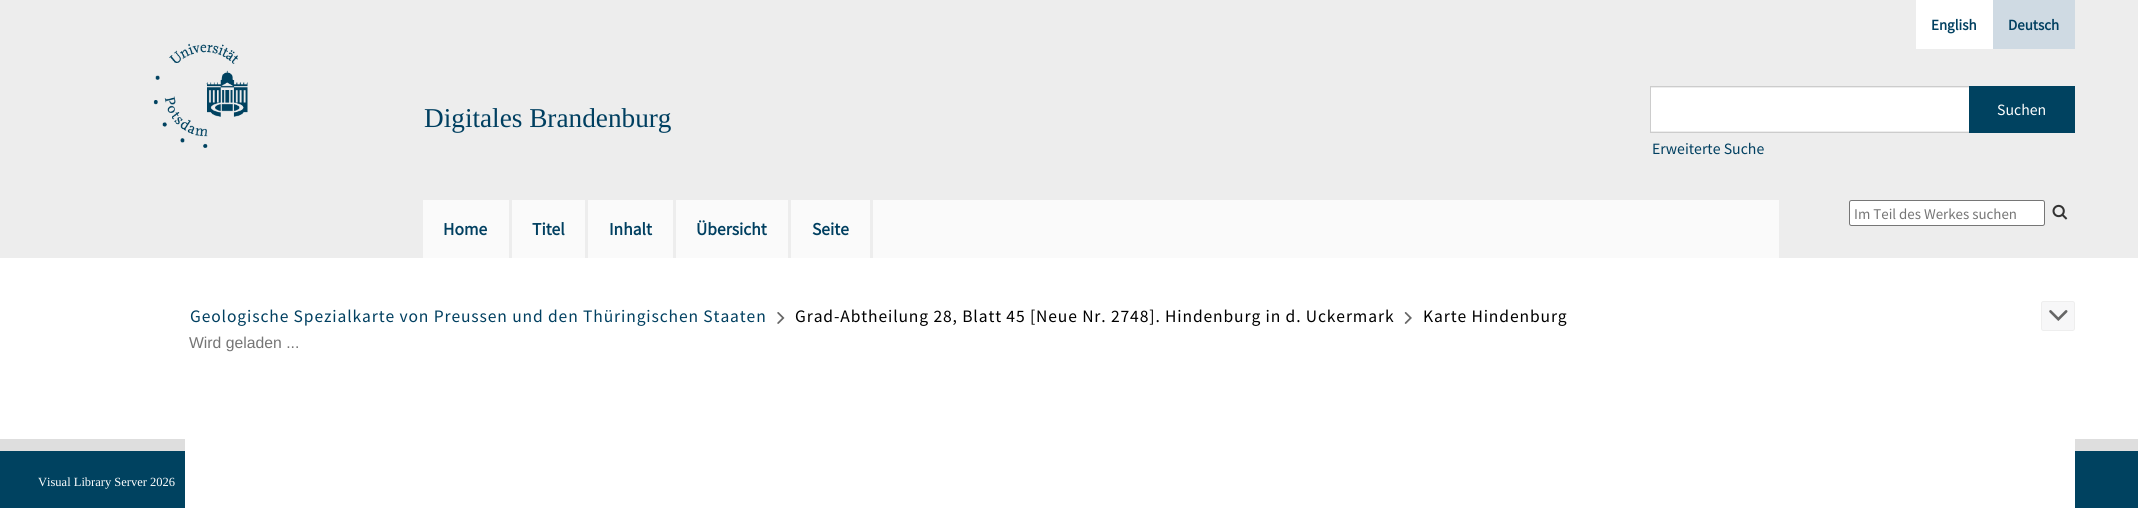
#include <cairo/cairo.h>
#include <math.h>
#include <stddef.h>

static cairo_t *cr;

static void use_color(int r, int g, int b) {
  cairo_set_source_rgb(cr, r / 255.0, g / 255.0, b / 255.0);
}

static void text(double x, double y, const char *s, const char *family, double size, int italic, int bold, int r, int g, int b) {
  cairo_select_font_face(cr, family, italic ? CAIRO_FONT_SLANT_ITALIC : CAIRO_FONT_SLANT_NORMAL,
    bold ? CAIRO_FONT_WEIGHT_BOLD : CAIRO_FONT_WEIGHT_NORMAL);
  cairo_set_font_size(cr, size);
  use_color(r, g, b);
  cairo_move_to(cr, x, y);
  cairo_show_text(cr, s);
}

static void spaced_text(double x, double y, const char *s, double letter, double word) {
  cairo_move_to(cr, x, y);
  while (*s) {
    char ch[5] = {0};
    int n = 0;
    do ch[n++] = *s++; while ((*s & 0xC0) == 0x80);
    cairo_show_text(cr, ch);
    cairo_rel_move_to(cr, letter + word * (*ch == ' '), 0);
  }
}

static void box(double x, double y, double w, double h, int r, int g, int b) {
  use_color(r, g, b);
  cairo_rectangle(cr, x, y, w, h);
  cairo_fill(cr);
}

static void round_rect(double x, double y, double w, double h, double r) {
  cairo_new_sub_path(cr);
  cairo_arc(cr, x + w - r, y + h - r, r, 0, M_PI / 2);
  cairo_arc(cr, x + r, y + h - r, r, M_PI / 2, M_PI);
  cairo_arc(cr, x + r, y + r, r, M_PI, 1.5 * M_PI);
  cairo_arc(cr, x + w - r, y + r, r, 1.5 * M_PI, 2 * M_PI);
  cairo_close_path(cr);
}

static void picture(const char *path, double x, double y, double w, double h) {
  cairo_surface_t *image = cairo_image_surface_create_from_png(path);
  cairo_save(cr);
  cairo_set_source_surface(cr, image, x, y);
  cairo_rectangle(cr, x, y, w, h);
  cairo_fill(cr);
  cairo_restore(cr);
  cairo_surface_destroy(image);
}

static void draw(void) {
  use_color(255, 255, 255);
  cairo_paint(cr);
  box(0, 0, 2138, 258, 237, 237, 237);
  picture("img_01.png", 153, 43, 95, 105);
  box(1916, 0, 77, 49, 255, 255, 255);
  box(1993, 0, 82, 49, 207, 218, 227);
  cairo_rectangle(cr, 1650.5, 86.5, 424, 46);
  use_color(204, 204, 204);
  cairo_set_line_width(cr, 1);
  cairo_stroke(cr);
  box(1651, 88, 318, 43, 255, 255, 255);
  box(1969, 86, 106, 47, 0, 66, 96);
  use_color(255, 255, 255);
  round_rect(1849.5, 200.5, 195, 25, 2);
  cairo_fill_preserve(cr);
  use_color(118, 118, 118);
  cairo_stroke(cr);
  picture("img_02.png", 2052, 204, 16, 16);
  box(423, 200, 1356, 58, 250, 250, 250);
  box(509, 200, 3, 58, 237, 237, 237);
  box(585, 200, 3, 58, 237, 237, 237);
  box(673, 200, 3, 58, 237, 237, 237);
  box(788, 200, 3, 58, 237, 237, 237);
  box(870, 200, 3, 58, 237, 237, 237);
  picture("img_03.png", 777, 312, 8, 12);
  picture("img_04.png", 1404, 312, 8, 12);
  use_color(247, 247, 248);
  round_rect(2041.5, 301.5, 33, 29, 2);
  cairo_fill_preserve(cr);
  use_color(238, 238, 238);
  cairo_stroke(cr);
  picture("img_05.png", 2049, 310, 19, 11);
  box(0, 451, 2138, 57, 0, 66, 96);
  box(0, 439, 2138, 12, 222, 222, 222);
  box(185, 439, 1890, 69, 255, 255, 255);
  text(424, 127, "Digitales Brandenburg", "Liberation Serif", 27.25, 0, 0, 0, 63, 96);
  text(1931, 30, "English", "Source Sans Pro", 15, 0, 1, 0, 63, 96);
  text(2008, 30, "Deutsch", "Source Sans Pro", 15, 0, 1, 0, 63, 96);
  text(1997, 115, "Suchen", "Source Sans Pro", 15.75, 0, 0, 255, 255, 255);
  text(1652, 154, "Erweiterte Suche", "Source Sans Pro", 15.75, 0, 0, 0, 63, 96);
  text(1854, 219, "Im Teil des Werkes suchen", "Source Sans Pro", 14.9, 0, 0, 117, 117, 117);
  text(443, 235, "Home", "Source Sans Pro", 17.5, 0, 1, 0, 63, 96);
  text(532, 235, "Titel", "Source Sans Pro", 17.5, 0, 1, 0, 63, 96);
  text(609, 235, "Inhalt", "Source Sans Pro", 17.5, 0, 1, 0, 63, 96);
  text(696, 235, "Übersicht", "Source Sans Pro", 17.5, 0, 1, 0, 63, 96);
  text(812, 235, "Seite", "Source Sans Pro", 17.5, 0, 1, 0, 63, 96);
  cairo_select_font_face(cr, "Source Sans Pro", CAIRO_FONT_SLANT_NORMAL, CAIRO_FONT_WEIGHT_NORMAL);
  spaced_text(190, 322, "Geologische Spezialkarte von Preussen und den Thüringischen Staaten", 0.88, 0);
  use_color(0, 0, 0);
  spaced_text(795, 322, "Grad-Abtheilung 28, Blatt 45 [Neue Nr. 2748]. Hindenburg in d. Uckermark", 0.88, 0);
  spaced_text(1423, 322, "Karte Hindenburg", 0.88, 0);
  text(189, 348, "Wird geladen ...", "Liberation Sans", 15.75, 0, 0, 117, 117, 117);
  text(38, 486, "Visual Library Server 2026", "Liberation Serif", 12.5, 0, 0, 255, 255, 255);
}

int main(void) {
  cairo_surface_t *surface = cairo_image_surface_create(CAIRO_FORMAT_RGB24, 2138, 508);
  cr = cairo_create(surface);
  cairo_font_options_t *options = cairo_font_options_create();
  cairo_font_options_set_hint_metrics(options, CAIRO_HINT_METRICS_OFF);
  cairo_font_options_set_hint_style(options, CAIRO_HINT_STYLE_NONE);
  cairo_set_font_options(cr, options);
  cairo_set_miter_limit(cr, 4);
  draw();
  cairo_surface_write_to_png(surface, "out.png");
  cairo_font_options_destroy(options);
  cairo_destroy(cr);
  cairo_surface_destroy(surface);
  return 0;
}
